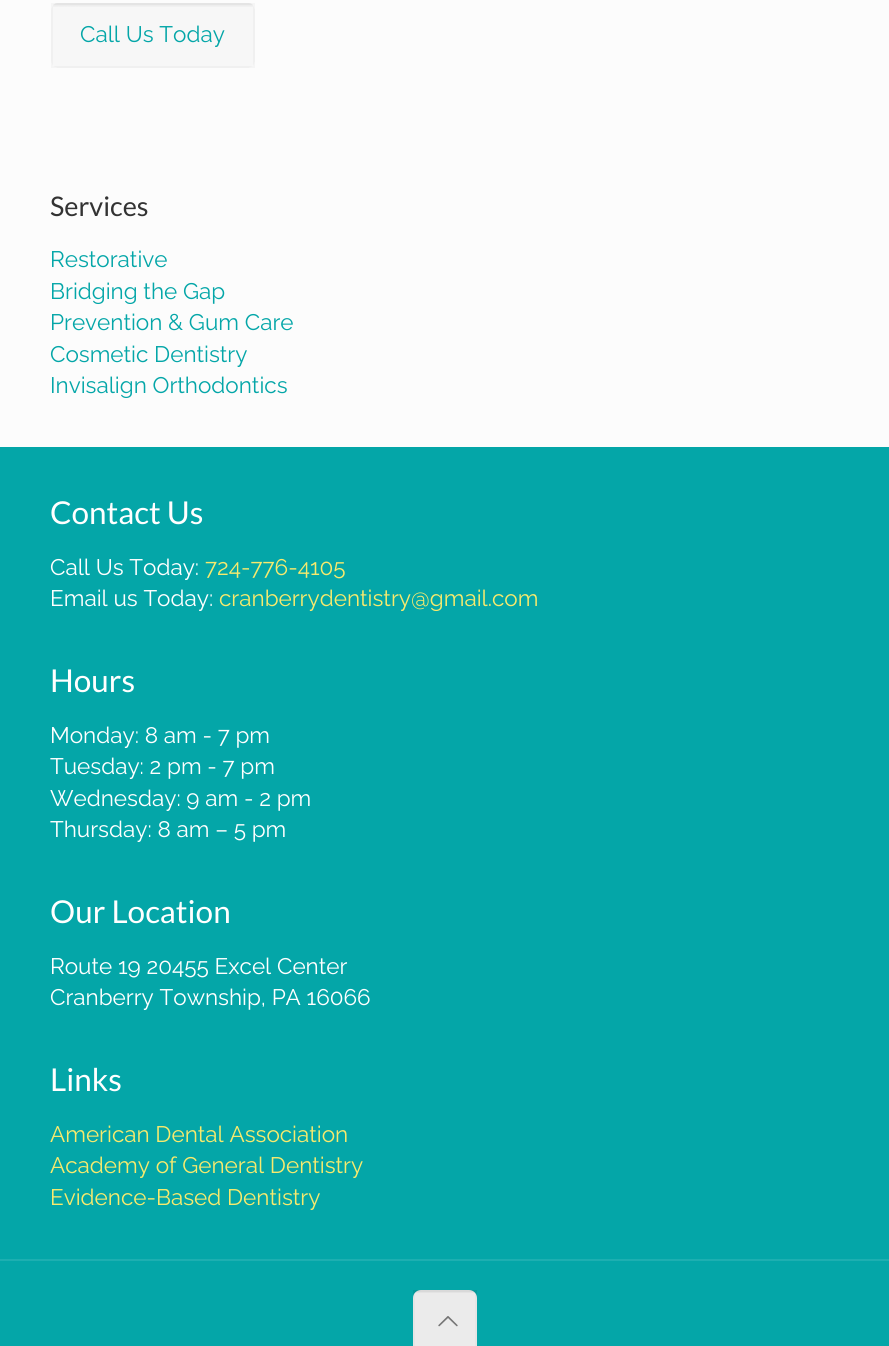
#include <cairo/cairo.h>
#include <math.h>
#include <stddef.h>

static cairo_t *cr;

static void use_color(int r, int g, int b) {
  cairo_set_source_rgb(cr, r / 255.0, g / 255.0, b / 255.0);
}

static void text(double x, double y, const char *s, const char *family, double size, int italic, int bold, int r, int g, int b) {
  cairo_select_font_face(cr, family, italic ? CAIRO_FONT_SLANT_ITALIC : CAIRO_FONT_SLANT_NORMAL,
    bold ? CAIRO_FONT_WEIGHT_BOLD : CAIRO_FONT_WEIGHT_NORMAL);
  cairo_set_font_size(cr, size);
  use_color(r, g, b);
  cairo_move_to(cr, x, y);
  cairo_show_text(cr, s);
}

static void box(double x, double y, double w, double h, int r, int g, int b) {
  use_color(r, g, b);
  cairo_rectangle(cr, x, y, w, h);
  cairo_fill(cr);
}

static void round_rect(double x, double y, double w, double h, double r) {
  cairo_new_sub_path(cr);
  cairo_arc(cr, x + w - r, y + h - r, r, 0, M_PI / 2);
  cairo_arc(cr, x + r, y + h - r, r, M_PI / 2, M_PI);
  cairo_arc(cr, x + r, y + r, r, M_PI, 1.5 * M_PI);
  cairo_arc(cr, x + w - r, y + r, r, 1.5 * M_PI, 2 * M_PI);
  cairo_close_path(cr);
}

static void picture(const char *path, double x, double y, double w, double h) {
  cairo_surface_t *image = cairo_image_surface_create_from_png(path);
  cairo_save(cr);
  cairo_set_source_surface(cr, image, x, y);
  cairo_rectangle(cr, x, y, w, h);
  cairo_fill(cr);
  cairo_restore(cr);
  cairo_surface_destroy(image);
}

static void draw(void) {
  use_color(252, 252, 252);
  cairo_paint(cr);
  use_color(247, 247, 247);
  round_rect(51, 3, 204, 65, 8);
  cairo_fill(cr);
  picture("img_01.png", 53, 3, 200, 4);
  cairo_rectangle(cr, 52, 4, 202, 63);
  cairo_set_source_rgba(cr, 0, 0, 0, 0.03);
  cairo_stroke(cr);
  box(0, 447, 889, 899, 4, 166, 168);
  box(0, 1259, 889, 2, 29, 175, 177);
  use_color(247, 247, 247);
  round_rect(413, 1290, 64, 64, 8);
  cairo_fill(cr);
  picture("img_02.png", 414, 1290, 61, 3);
  cairo_rectangle(cr, 414, 1291, 62, 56);
  cairo_set_source_rgba(cr, 0, 0, 0, 0.03);
  cairo_stroke(cr);
  cairo_set_source_rgba(cr, 0, 0, 0, 0.05);
  cairo_rectangle(cr, 413, 1290, 64, 56);
  cairo_fill(cr);
  picture("img_03.png", 438, 1316, 20, 11);
  text(80, 42, "Call Us Today", "Raleway Thin", 22.5, 0, 0, 4, 166, 168);
  text(50, 216, "Services", "Lato", 27, 0, 0, 51, 51, 51);
  text(50, 267, "Restorative", "Raleway Thin", 22.5, 0, 0, 4, 166, 168);
  text(50, 299, "Bridging the Gap", "Raleway Thin", 22.5, 0, 0, 4, 166, 168);
  text(50, 330, "Prevention & Gum Care", "Raleway Thin", 22.5, 0, 0, 4, 166, 168);
  text(50, 362, "Cosmetic Dentistry", "Raleway Thin", 22.5, 0, 0, 4, 166, 168);
  text(50, 393, "Invisalign Orthodontics", "Raleway Thin", 22.5, 0, 0, 4, 166, 168);
  text(50, 524, "Contact Us", "Lato", 31.5, 0, 0, 255, 255, 255);
  text(50, 575, "Call Us Today:", "Raleway Thin", 22.5, 0, 0, 255, 255, 255);
  text(205, 575, "724-776-4105", "Raleway Thin", 22.5, 0, 0, 248, 234, 109);
  text(50, 606, "Email us Today:", "Raleway Thin", 22.5, 0, 0, 255, 255, 255);
  text(219, 606, "cranberrydentistry@gmail.com", "Raleway Thin", 22.5, 0, 0, 248, 234, 109);
  text(50, 692, "Hours", "Lato", 31.5, 0, 0, 255, 255, 255);
  text(50, 743, "Monday: 8 am - 7 pm", "Raleway Thin", 22.5, 0, 0, 255, 255, 255);
  text(50, 774, "Tuesday: 2 pm - 7 pm", "Raleway Thin", 22.5, 0, 0, 255, 255, 255);
  text(50, 806, "Wednesday: 9 am - 2 pm", "Raleway Thin", 22.5, 0, 0, 255, 255, 255);
  text(50, 837, "Thursday: 8 am – 5 pm", "Raleway Thin", 22.5, 0, 0, 255, 255, 255);
  text(50, 923, "Our Location", "Lato", 31.5, 0, 0, 255, 255, 255);
  text(50, 974, "Route 19 20455 Excel Center", "Raleway Thin", 22.5, 0, 0, 255, 255, 255);
  text(50, 1005, "Cranberry Township, PA 16066", "Raleway Thin", 22.5, 0, 0, 255, 255, 255);
  text(50, 1091, "Links", "Lato", 31.5, 0, 0, 255, 255, 255);
  text(50, 1142, "American Dental Association", "Raleway Thin", 22.5, 0, 0, 248, 234, 109);
  text(50, 1173, "Academy of General Dentistry", "Raleway Thin", 22.5, 0, 0, 248, 234, 109);
  text(50, 1205, "Evidence-Based Dentistry", "Raleway Thin", 22.5, 0, 0, 248, 234, 109);
}

int main(void) {
  cairo_surface_t *surface = cairo_image_surface_create(CAIRO_FORMAT_RGB24, 889, 1346);
  cr = cairo_create(surface);
  cairo_font_options_t *options = cairo_font_options_create();
  cairo_font_options_set_hint_metrics(options, CAIRO_HINT_METRICS_OFF);
  cairo_font_options_set_hint_style(options, CAIRO_HINT_STYLE_NONE);
  cairo_set_font_options(cr, options);
  cairo_set_miter_limit(cr, 4);
  draw();
  cairo_surface_write_to_png(surface, "out.png");
  cairo_font_options_destroy(options);
  cairo_destroy(cr);
  cairo_surface_destroy(surface);
  return 0;
}
